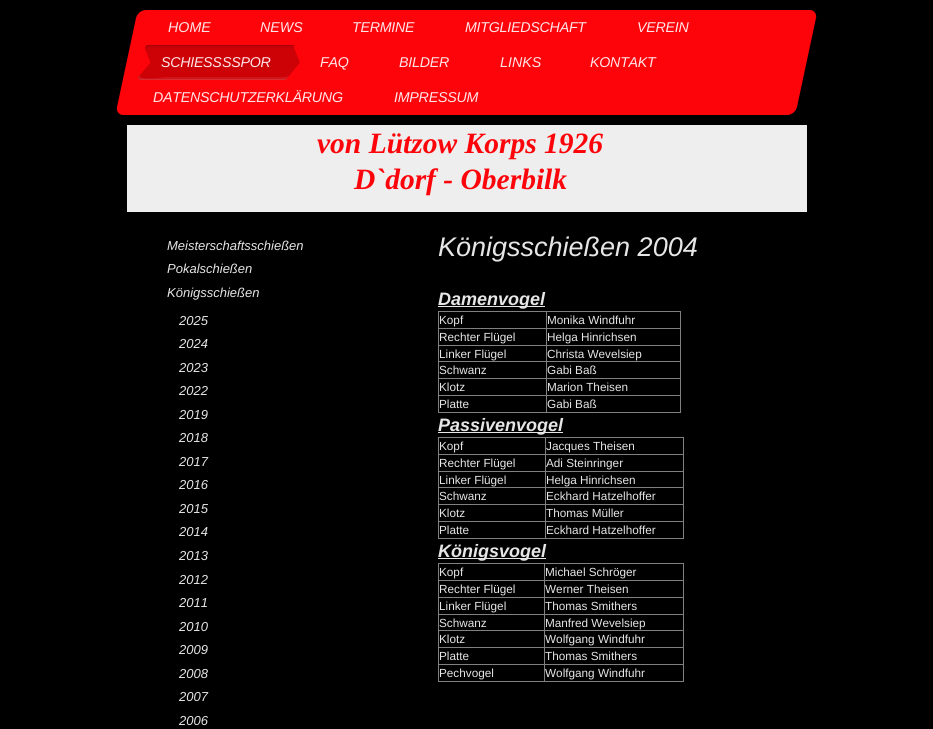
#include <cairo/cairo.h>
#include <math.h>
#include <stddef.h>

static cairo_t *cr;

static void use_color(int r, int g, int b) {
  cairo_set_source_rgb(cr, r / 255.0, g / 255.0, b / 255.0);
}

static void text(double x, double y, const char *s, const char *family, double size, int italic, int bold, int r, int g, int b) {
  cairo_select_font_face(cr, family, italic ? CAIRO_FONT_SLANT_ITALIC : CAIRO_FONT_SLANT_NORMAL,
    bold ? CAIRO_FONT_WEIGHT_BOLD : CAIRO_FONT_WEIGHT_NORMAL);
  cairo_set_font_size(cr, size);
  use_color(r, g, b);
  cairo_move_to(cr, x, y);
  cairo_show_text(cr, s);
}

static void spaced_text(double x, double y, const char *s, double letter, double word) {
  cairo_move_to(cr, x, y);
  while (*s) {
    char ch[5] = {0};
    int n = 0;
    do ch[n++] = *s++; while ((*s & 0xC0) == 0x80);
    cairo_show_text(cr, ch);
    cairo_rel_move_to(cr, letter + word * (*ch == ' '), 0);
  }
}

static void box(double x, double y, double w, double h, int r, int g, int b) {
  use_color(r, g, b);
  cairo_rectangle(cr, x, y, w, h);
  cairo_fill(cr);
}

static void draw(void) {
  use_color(0, 0, 0);
  cairo_paint(cr);
  use_color(253, 4, 10);
  cairo_new_path(cr);
  cairo_move_to(cr, 146, 10);
  cairo_line_to(cr, 810, 10);
  cairo_curve_to(cr, 814, 10, 817, 14, 816, 18);
  cairo_line_to(cr, 797, 107);
  cairo_curve_to(cr, 796, 111, 792, 115, 787, 115);
  cairo_line_to(cr, 123, 115);
  cairo_curve_to(cr, 119, 115, 116, 111, 117, 107);
  cairo_line_to(cr, 136, 18);
  cairo_curve_to(cr, 137, 14, 141, 10, 146, 10);
  cairo_close_path(cr);
  cairo_fill(cr);
  use_color(204, 2, 7);
  cairo_new_path(cr);
  cairo_move_to(cr, 148, 45);
  cairo_line_to(cr, 292, 45);
  cairo_curve_to(cr, 294, 45, 295, 46, 294, 48);
  cairo_line_to(cr, 288, 77);
  cairo_curve_to(cr, 288, 78, 286, 80, 284, 80);
  cairo_line_to(cr, 141, 80);
  cairo_curve_to(cr, 139, 80, 138, 78, 138, 77);
  cairo_line_to(cr, 145, 48);
  cairo_curve_to(cr, 145, 46, 147, 45, 148, 45);
  cairo_close_path(cr);
  cairo_fill(cr);
  cairo_set_source_rgba(cr, 0, 0, 0, 0.15);
  cairo_new_path(cr);
  cairo_move_to(cr, 149, 46);
  cairo_line_to(cr, 293, 46);
  cairo_line_to(cr, 294, 47);
  cairo_curve_to(cr, 294, 46, 293, 45, 292, 45);
  cairo_line_to(cr, 148, 45);
  cairo_curve_to(cr, 147, 45, 145, 46, 145, 48);
  cairo_line_to(cr, 138, 77);
  cairo_curve_to(cr, 138, 78, 139, 79, 139, 79);
  cairo_line_to(cr, 139, 78);
  cairo_line_to(cr, 145, 49);
  cairo_curve_to(cr, 146, 47, 147, 46, 149, 46);
  cairo_close_path(cr);
  cairo_fill(cr);
  cairo_set_source_rgba(cr, 0, 0, 0, 0.04);
  cairo_set_fill_rule(cr, CAIRO_FILL_RULE_EVEN_ODD);
  cairo_new_path(cr);
  cairo_move_to(cr, 148, 48);
  cairo_line_to(cr, 291, 48);
  cairo_curve_to(cr, 293, 48, 294, 49, 294, 50);
  cairo_curve_to(cr, 294, 48, 295, 45, 292, 45);
  cairo_line_to(cr, 148, 45);
  cairo_curve_to(cr, 144, 45, 144, 50, 144, 53);
  cairo_line_to(cr, 138, 78);
  cairo_line_to(cr, 144, 51);
  cairo_curve_to(cr, 144, 49, 146, 48, 148, 48);
  cairo_close_path(cr);
  cairo_move_to(cr, 291, 64);
  cairo_line_to(cr, 287, 78);
  cairo_close_path(cr);
  cairo_fill(cr);
  cairo_set_source_rgba(cr, 1, 1, 1, 0.08);
  cairo_set_fill_rule(cr, CAIRO_FILL_RULE_WINDING);
  cairo_new_path(cr);
  cairo_move_to(cr, 139, 74);
  cairo_line_to(cr, 138, 77);
  cairo_curve_to(cr, 138, 78, 139, 80, 141, 80);
  cairo_line_to(cr, 284, 80);
  cairo_curve_to(cr, 286, 80, 288, 78, 288, 77);
  cairo_line_to(cr, 289, 74);
  cairo_line_to(cr, 286, 77);
  cairo_line_to(cr, 165, 77);
  cairo_curve_to(cr, 164, 77, 139, 82, 139, 74);
  cairo_close_path(cr);
  cairo_fill(cr);
  cairo_set_source_rgba(cr, 1, 1, 1, 0.1);
  cairo_new_path(cr);
  cairo_move_to(cr, 145, 47);
  cairo_line_to(cr, 138, 77);
  cairo_curve_to(cr, 138, 78, 139, 80, 141, 80);
  cairo_line_to(cr, 284, 80);
  cairo_curve_to(cr, 286, 80, 288, 78, 288, 77);
  cairo_line_to(cr, 294, 46);
  cairo_line_to(cr, 288, 76);
  cairo_curve_to(cr, 288, 77, 286, 79, 285, 79);
  cairo_line_to(cr, 141, 79);
  cairo_curve_to(cr, 139, 79, 138, 77, 139, 76);
  cairo_close_path(cr);
  cairo_fill(cr);
  use_color(253, 4, 10);
  cairo_new_path(cr);
  cairo_move_to(cr, 137, 78.5);
  cairo_line_to(cr, 144, 46.5);
  cairo_line_to(cr, 150.5, 62.5);
  cairo_close_path(cr);
  cairo_fill(cr);
  use_color(204, 2, 7);
  cairo_new_path(cr);
  cairo_move_to(cr, 287, 78.5);
  cairo_line_to(cr, 293.5, 46.5);
  cairo_line_to(cr, 300, 62.5);
  cairo_close_path(cr);
  cairo_fill(cr);
  box(127, 125, 680, 87, 238, 238, 238);
  box(438, 306, 107, 1, 230, 230, 230);
  box(438, 311, 243, 1, 128, 128, 128);
  box(680, 311, 1, 102, 128, 128, 128);
  box(438, 412, 243, 1, 128, 128, 128);
  box(438, 311, 1, 102, 128, 128, 128);
  box(546, 328, 135, 1, 128, 128, 128);
  box(546, 345, 135, 1, 128, 128, 128);
  box(546, 361, 135, 1, 128, 128, 128);
  box(546, 378, 135, 1, 128, 128, 128);
  box(546, 395, 135, 1, 128, 128, 128);
  box(546, 395, 1, 18, 128, 128, 128);
  box(438, 395, 109, 1, 128, 128, 128);
  box(546, 378, 1, 18, 128, 128, 128);
  box(438, 378, 109, 1, 128, 128, 128);
  box(546, 361, 1, 18, 128, 128, 128);
  box(438, 361, 109, 1, 128, 128, 128);
  box(546, 345, 1, 17, 128, 128, 128);
  box(438, 345, 109, 1, 128, 128, 128);
  box(546, 328, 1, 18, 128, 128, 128);
  box(438, 328, 109, 1, 128, 128, 128);
  box(546, 311, 1, 18, 128, 128, 128);
  box(438, 432, 125, 1, 230, 230, 230);
  box(438, 437, 246, 1, 128, 128, 128);
  box(683, 437, 1, 102, 128, 128, 128);
  box(438, 538, 246, 1, 128, 128, 128);
  box(438, 437, 1, 102, 128, 128, 128);
  box(545, 454, 139, 1, 128, 128, 128);
  box(545, 471, 139, 1, 128, 128, 128);
  box(545, 487, 139, 1, 128, 128, 128);
  box(545, 504, 139, 1, 128, 128, 128);
  box(545, 521, 139, 1, 128, 128, 128);
  box(545, 521, 1, 18, 128, 128, 128);
  box(438, 521, 108, 1, 128, 128, 128);
  box(545, 504, 1, 18, 128, 128, 128);
  box(438, 504, 108, 1, 128, 128, 128);
  box(545, 487, 1, 18, 128, 128, 128);
  box(438, 487, 108, 1, 128, 128, 128);
  box(545, 471, 1, 17, 128, 128, 128);
  box(438, 471, 108, 1, 128, 128, 128);
  box(545, 454, 1, 18, 128, 128, 128);
  box(438, 454, 108, 1, 128, 128, 128);
  box(545, 437, 1, 18, 128, 128, 128);
  box(438, 558, 108, 1, 230, 230, 230);
  box(438, 563, 246, 1, 128, 128, 128);
  box(683, 563, 1, 119, 128, 128, 128);
  box(438, 681, 246, 1, 128, 128, 128);
  box(438, 563, 1, 119, 128, 128, 128);
  box(544, 580, 140, 1, 128, 128, 128);
  box(544, 597, 140, 1, 128, 128, 128);
  box(544, 614, 140, 1, 128, 128, 128);
  box(544, 630, 140, 1, 128, 128, 128);
  box(544, 647, 140, 1, 128, 128, 128);
  box(544, 664, 140, 1, 128, 128, 128);
  box(544, 664, 1, 18, 128, 128, 128);
  box(438, 664, 107, 1, 128, 128, 128);
  box(544, 647, 1, 18, 128, 128, 128);
  box(438, 647, 107, 1, 128, 128, 128);
  box(544, 630, 1, 18, 128, 128, 128);
  box(438, 630, 107, 1, 128, 128, 128);
  box(544, 614, 1, 17, 128, 128, 128);
  box(438, 614, 107, 1, 128, 128, 128);
  box(544, 597, 1, 18, 128, 128, 128);
  box(438, 597, 107, 1, 128, 128, 128);
  box(544, 580, 1, 18, 128, 128, 128);
  box(438, 580, 107, 1, 128, 128, 128);
  box(544, 563, 1, 18, 128, 128, 128);
  text(168, 32, "HOME", "Liberation Sans", 14.25, 1, 0, 255, 230, 231);
  text(260, 32, "NEWS", "Liberation Sans", 14.25, 1, 0, 255, 230, 231);
  spaced_text(352, 32, "TERMINE", -0.25, 0);
  spaced_text(465, 32, "MITGLIEDSCHAFT", -0.25, 0);
  spaced_text(637, 32, "VEREIN", -0.25, 0);
  spaced_text(161, 67, "SCHIE", -0.25, 0);
  spaced_text(203, 67, "SS", -0.25, 0);
  spaced_text(222, 67, "SSPOR", -0.25, 0);
  spaced_text(320, 67, "FAQ", -0.25, 0);
  spaced_text(399, 67, "BILDER", -0.25, 0);
  text(500, 67, "LINKS", "Liberation Sans", 14.25, 1, 0, 255, 230, 231);
  spaced_text(590, 67, "KONTAKT", -0.25, 0);
  spaced_text(153, 102, "DATENSCHUTZERKLÄRUNG", -0.25, 0);
  spaced_text(394, 102, "IMPRESSUM", -0.25, 0);
  text(317, 153, "von Lützow Korps 1926", "Liberation Serif", 29.5, 1, 1, 253, 4, 10);
  text(354, 189, "D`dorf - Oberbilk", "Liberation Serif", 29.5, 1, 1, 253, 4, 10);
  text(167, 250, "Meisterschaftsschießen", "Liberation Sans", 13, 1, 0, 230, 230, 230);
  text(167, 273, "Pokalschießen", "Liberation Sans", 13, 1, 0, 230, 230, 230);
  text(167, 297, "Königsschießen", "Liberation Sans", 13, 1, 0, 230, 230, 230);
  text(179, 325, "2025", "Liberation Sans", 13, 1, 0, 230, 230, 230);
  text(179, 348, "2024", "Liberation Sans", 13, 1, 0, 230, 230, 230);
  text(179, 372, "2023", "Liberation Sans", 13, 1, 0, 230, 230, 230);
  text(179, 395, "2022", "Liberation Sans", 13, 1, 0, 230, 230, 230);
  text(179, 419, "2019", "Liberation Sans", 13, 1, 0, 230, 230, 230);
  text(179, 442, "2018", "Liberation Sans", 13, 1, 0, 230, 230, 230);
  text(179, 466, "2017", "Liberation Sans", 13, 1, 0, 230, 230, 230);
  text(179, 489, "2016", "Liberation Sans", 13, 1, 0, 230, 230, 230);
  text(179, 513, "2015", "Liberation Sans", 13, 1, 0, 230, 230, 230);
  text(179, 536, "2014", "Liberation Sans", 13, 1, 0, 230, 230, 230);
  text(179, 560, "2013", "Liberation Sans", 13, 1, 0, 230, 230, 230);
  text(179, 584, "2012", "Liberation Sans", 13, 1, 0, 230, 230, 230);
  text(179, 607, "2011", "Liberation Sans", 13, 1, 0, 230, 230, 230);
  text(179, 631, "2010", "Liberation Sans", 13, 1, 0, 230, 230, 230);
  text(179, 654, "2009", "Liberation Sans", 13, 1, 0, 230, 230, 230);
  text(179, 678, "2008", "Liberation Sans", 13, 1, 0, 230, 230, 230);
  text(179, 701, "2007", "Liberation Sans", 13, 1, 0, 230, 230, 230);
  text(179, 725, "2006", "Liberation Sans", 13, 1, 0, 230, 230, 230);
  text(438, 256, "Königsschießen 2004", "Liberation Sans", 27, 1, 0, 230, 230, 230);
  text(438, 305, "Damenvogel", "Liberation Sans", 18, 1, 1, 230, 230, 230);
  text(439, 324, "Kopf", "Liberation Sans", 11.75, 0, 0, 230, 230, 230);
  text(547, 324, "Monika Windfuhr", "Liberation Sans", 11.75, 0, 0, 230, 230, 230);
  text(439, 341, "Rechter Flügel", "Liberation Sans", 11.75, 0, 0, 230, 230, 230);
  text(547, 341, "Helga Hinrichsen", "Liberation Sans", 11.75, 0, 0, 230, 230, 230);
  text(439, 358, "Linker Flügel", "Liberation Sans", 11.75, 0, 0, 230, 230, 230);
  text(547, 358, "Christa Wevelsiep", "Liberation Sans", 11.75, 0, 0, 230, 230, 230);
  text(439, 374, "Schwanz", "Liberation Sans", 11.75, 0, 0, 230, 230, 230);
  text(547, 374, "Gabi Baß", "Liberation Sans", 11.75, 0, 0, 230, 230, 230);
  text(439, 391, "Klotz", "Liberation Sans", 11.75, 0, 0, 230, 230, 230);
  text(547, 391, "Marion Theisen", "Liberation Sans", 11.75, 0, 0, 230, 230, 230);
  text(439, 408, "Platte", "Liberation Sans", 11.75, 0, 0, 230, 230, 230);
  text(547, 408, "Gabi Baß", "Liberation Sans", 11.75, 0, 0, 230, 230, 230);
  text(438, 431, "Passivenvogel", "Liberation Sans", 18, 1, 1, 230, 230, 230);
  text(439, 450, "Kopf", "Liberation Sans", 11.75, 0, 0, 230, 230, 230);
  text(546, 450, "Jacques Theisen", "Liberation Sans", 11.75, 0, 0, 230, 230, 230);
  text(439, 467, "Rechter Flügel", "Liberation Sans", 11.75, 0, 0, 230, 230, 230);
  text(546, 467, "Adi Steinringer", "Liberation Sans", 11.75, 0, 0, 230, 230, 230);
  text(439, 484, "Linker Flügel", "Liberation Sans", 11.75, 0, 0, 230, 230, 230);
  text(546, 484, "Helga Hinrichsen", "Liberation Sans", 11.75, 0, 0, 230, 230, 230);
  text(439, 500, "Schwanz", "Liberation Sans", 11.75, 0, 0, 230, 230, 230);
  text(546, 500, "Eckhard Hatzelhoffer", "Liberation Sans", 11.75, 0, 0, 230, 230, 230);
  text(439, 517, "Klotz", "Liberation Sans", 11.75, 0, 0, 230, 230, 230);
  text(546, 517, "Thomas Müller", "Liberation Sans", 11.75, 0, 0, 230, 230, 230);
  text(439, 534, "Platte", "Liberation Sans", 11.75, 0, 0, 230, 230, 230);
  text(546, 534, "Eckhard Hatzelhoffer", "Liberation Sans", 11.75, 0, 0, 230, 230, 230);
  text(438, 557, "Königsvogel", "Liberation Sans", 18, 1, 1, 230, 230, 230);
  text(439, 576, "Kopf", "Liberation Sans", 11.75, 0, 0, 230, 230, 230);
  text(545, 576, "Michael Schröger", "Liberation Sans", 11.75, 0, 0, 230, 230, 230);
  text(439, 593, "Rechter Flügel", "Liberation Sans", 11.75, 0, 0, 230, 230, 230);
  text(545, 593, "Werner Theisen", "Liberation Sans", 11.75, 0, 0, 230, 230, 230);
  text(439, 610, "Linker Flügel", "Liberation Sans", 11.75, 0, 0, 230, 230, 230);
  text(545, 610, "Thomas Smithers", "Liberation Sans", 11.75, 0, 0, 230, 230, 230);
  text(439, 627, "Schwanz", "Liberation Sans", 11.75, 0, 0, 230, 230, 230);
  text(545, 627, "Manfred Wevelsiep", "Liberation Sans", 11.75, 0, 0, 230, 230, 230);
  text(439, 643, "Klotz", "Liberation Sans", 11.75, 0, 0, 230, 230, 230);
  text(545, 643, "Wolfgang Windfuhr", "Liberation Sans", 11.75, 0, 0, 230, 230, 230);
  text(439, 660, "Platte", "Liberation Sans", 11.75, 0, 0, 230, 230, 230);
  text(545, 660, "Thomas Smithers", "Liberation Sans", 11.75, 0, 0, 230, 230, 230);
  text(439, 677, "Pechvogel", "Liberation Sans", 11.75, 0, 0, 230, 230, 230);
  text(545, 677, "Wolfgang Windfuhr", "Liberation Sans", 11.75, 0, 0, 230, 230, 230);
}

int main(void) {
  cairo_surface_t *surface = cairo_image_surface_create(CAIRO_FORMAT_RGB24, 933, 729);
  cr = cairo_create(surface);
  cairo_font_options_t *options = cairo_font_options_create();
  cairo_font_options_set_hint_metrics(options, CAIRO_HINT_METRICS_OFF);
  cairo_font_options_set_hint_style(options, CAIRO_HINT_STYLE_NONE);
  cairo_set_font_options(cr, options);
  cairo_set_miter_limit(cr, 4);
  draw();
  cairo_surface_write_to_png(surface, "out.png");
  cairo_font_options_destroy(options);
  cairo_destroy(cr);
  cairo_surface_destroy(surface);
  return 0;
}
